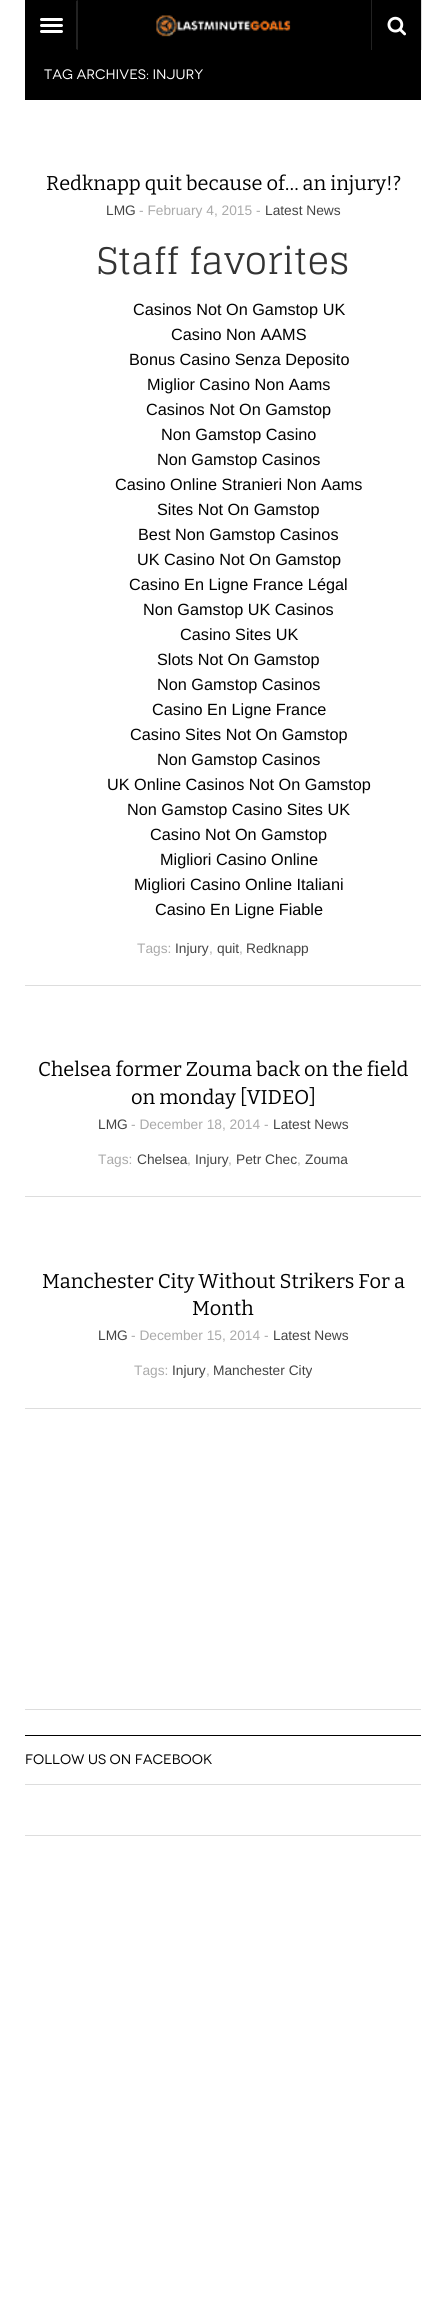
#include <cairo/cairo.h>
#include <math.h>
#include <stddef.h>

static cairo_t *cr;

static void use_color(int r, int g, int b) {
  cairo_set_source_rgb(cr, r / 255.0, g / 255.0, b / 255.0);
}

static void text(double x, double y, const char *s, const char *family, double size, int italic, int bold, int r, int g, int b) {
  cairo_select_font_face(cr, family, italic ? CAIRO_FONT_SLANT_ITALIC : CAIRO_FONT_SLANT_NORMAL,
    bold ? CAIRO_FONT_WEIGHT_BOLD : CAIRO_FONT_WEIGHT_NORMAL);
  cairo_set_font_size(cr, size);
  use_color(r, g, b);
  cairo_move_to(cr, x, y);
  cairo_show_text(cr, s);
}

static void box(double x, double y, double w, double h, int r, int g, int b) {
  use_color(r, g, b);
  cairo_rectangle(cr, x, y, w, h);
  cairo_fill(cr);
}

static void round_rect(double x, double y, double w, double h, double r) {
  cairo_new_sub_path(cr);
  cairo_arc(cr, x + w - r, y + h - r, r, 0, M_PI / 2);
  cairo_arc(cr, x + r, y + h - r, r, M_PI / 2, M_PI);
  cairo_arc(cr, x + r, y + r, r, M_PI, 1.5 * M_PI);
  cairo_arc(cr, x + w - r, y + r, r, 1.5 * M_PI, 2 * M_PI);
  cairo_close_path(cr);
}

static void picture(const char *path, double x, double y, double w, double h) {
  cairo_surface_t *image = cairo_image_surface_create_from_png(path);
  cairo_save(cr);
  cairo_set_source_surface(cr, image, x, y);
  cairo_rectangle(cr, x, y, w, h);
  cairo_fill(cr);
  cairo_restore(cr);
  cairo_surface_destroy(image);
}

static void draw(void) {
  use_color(255, 255, 255);
  cairo_paint(cr);
  box(421, 0, 1, 50, 221, 221, 221);
  box(25, 0, 396, 100, 0, 0, 0);
  use_color(34, 34, 34);
  cairo_new_path(cr);
  cairo_move_to(cr, 78, 0);
  cairo_line_to(cr, 78, 50);
  cairo_line_to(cr, 76, 49);
  cairo_line_to(cr, 76, 1);
  cairo_close_path(cr);
  cairo_fill(cr);
  use_color(255, 255, 255);
  round_rect(40, 18, 23, 3, 1.5);
  cairo_fill(cr);
  round_rect(40, 24, 23, 3, 1.5);
  cairo_fill(cr);
  round_rect(40, 30, 23, 3, 1.5);
  cairo_fill(cr);
  picture("img_01.png", 156, 15, 135, 22);
  box(371, 0, 1, 50, 34, 34, 34);
  picture("img_02.png", 387, 16, 19, 20);
  box(25, 985, 396, 1, 221, 221, 221);
  box(25, 1196, 396, 1, 221, 221, 221);
  box(25, 1408, 396, 1, 221, 221, 221);
  box(25, 1709, 396, 1, 221, 221, 221);
  box(25, 1735, 396, 1, 0, 0, 0);
  box(25, 1784, 396, 1, 221, 221, 221);
  box(25, 1835, 396, 1, 221, 221, 221);
  text(44, 79, "TAG ARCHIVES: INJURY", "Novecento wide", 13.75, 0, 0, 255, 255, 255);
  text(46, 190, "Redknapp quit because of… an injury!?", "Bitter", 20, 0, 0, 0, 0, 0);
  text(106, 215, "LMG", "Liberation Sans", 13.75, 0, 0, 68, 68, 68);
  text(139, 215, "- February 4, 2015 -", "Liberation Sans", 13.75, 0, 0, 170, 170, 170);
  text(265, 215, "Latest News", "Liberation Sans", 13.75, 0, 0, 68, 68, 68);
  text(97, 274, "Staff favorites", "Glegoo", 36.5, 0, 0, 51, 51, 51);
  text(133, 315, "Casinos Not On Gamstop UK", "Liberation Sans", 16.25, 0, 0, 0, 0, 0);
  text(171, 340, "Casino Non AAMS", "Liberation Sans", 16.25, 0, 0, 0, 0, 0);
  text(129, 365, "Bonus Casino Senza Deposito", "Liberation Sans", 16.25, 0, 0, 0, 0, 0);
  text(147, 390, "Miglior Casino Non Aams", "Liberation Sans", 16.25, 0, 0, 0, 0, 0);
  text(146, 415, "Casinos Not On Gamstop", "Liberation Sans", 16.25, 0, 0, 0, 0, 0);
  text(161, 440, "Non Gamstop Casino", "Liberation Sans", 16.25, 0, 0, 0, 0, 0);
  text(157, 465, "Non Gamstop Casinos", "Liberation Sans", 16.25, 0, 0, 0, 0, 0);
  text(115, 490, "Casino Online Stranieri Non Aams", "Liberation Sans", 16.25, 0, 0, 0, 0, 0);
  text(157, 515, "Sites Not On Gamstop", "Liberation Sans", 16.25, 0, 0, 0, 0, 0);
  text(138, 540, "Best Non Gamstop Casinos", "Liberation Sans", 16.25, 0, 0, 0, 0, 0);
  text(137, 565, "UK Casino Not On Gamstop", "Liberation Sans", 16.25, 0, 0, 0, 0, 0);
  text(129, 590, "Casino En Ligne France Légal", "Liberation Sans", 16.25, 0, 0, 0, 0, 0);
  text(143, 615, "Non Gamstop UK Casinos", "Liberation Sans", 16.25, 0, 0, 0, 0, 0);
  text(180, 640, "Casino Sites UK", "Liberation Sans", 16.25, 0, 0, 0, 0, 0);
  text(157, 665, "Slots Not On Gamstop", "Liberation Sans", 16.25, 0, 0, 0, 0, 0);
  text(157, 690, "Non Gamstop Casinos", "Liberation Sans", 16.25, 0, 0, 0, 0, 0);
  text(152, 715, "Casino En Ligne France", "Liberation Sans", 16.25, 0, 0, 0, 0, 0);
  text(130, 740, "Casino Sites Not On Gamstop", "Liberation Sans", 16.25, 0, 0, 0, 0, 0);
  text(157, 765, "Non Gamstop Casinos", "Liberation Sans", 16.25, 0, 0, 0, 0, 0);
  text(107, 790, "UK Online Casinos Not On Gamstop", "Liberation Sans", 16.25, 0, 0, 0, 0, 0);
  text(127, 815, "Non Gamstop Casino Sites UK", "Liberation Sans", 16.25, 0, 0, 0, 0, 0);
  text(150, 840, "Casino Not On Gamstop", "Liberation Sans", 16.25, 0, 0, 0, 0, 0);
  text(160, 865, "Migliori Casino Online", "Liberation Sans", 16.25, 0, 0, 0, 0, 0);
  text(134, 890, "Migliori Casino Online Italiani", "Liberation Sans", 16.25, 0, 0, 0, 0, 0);
  text(155, 915, "Casino En Ligne Fiable", "Liberation Sans", 16.25, 0, 0, 0, 0, 0);
  text(137, 953, "Tags:", "Liberation Sans", 13.75, 0, 0, 170, 170, 170);
  text(175, 953, "Injury", "Liberation Sans", 13.75, 0, 0, 68, 68, 68);
  text(209, 953, ",", "Liberation Sans", 13.75, 0, 0, 170, 170, 170);
  text(217, 953, "quit", "Liberation Sans", 13.75, 0, 0, 68, 68, 68);
  text(239, 953, ",", "Liberation Sans", 13.75, 0, 0, 170, 170, 170);
  text(246, 953, "Redknapp", "Liberation Sans", 13.75, 0, 0, 68, 68, 68);
  text(38, 1076, "Chelsea former Zouma back on the field", "Bitter", 20, 0, 0, 0, 0, 0);
  text(131, 1104, "on monday [VIDEO]", "Bitter", 20, 0, 0, 0, 0, 0);
  text(98, 1129, "LMG", "Liberation Sans", 13.75, 0, 0, 68, 68, 68);
  text(131, 1129, "- December 18, 2014 -", "Liberation Sans", 13.75, 0, 0, 170, 170, 170);
  text(273, 1129, "Latest News", "Liberation Sans", 13.75, 0, 0, 68, 68, 68);
  text(98, 1164, "Tags:", "Liberation Sans", 13.75, 0, 0, 170, 170, 170);
  text(137, 1164, "Chelsea", "Liberation Sans", 13.75, 0, 0, 68, 68, 68);
  text(187, 1164, ",", "Liberation Sans", 13.75, 0, 0, 170, 170, 170);
  text(195, 1164, "Injury", "Liberation Sans", 13.75, 0, 0, 68, 68, 68);
  text(228, 1164, ",", "Liberation Sans", 13.75, 0, 0, 170, 170, 170);
  text(236, 1164, "Petr Chec", "Liberation Sans", 13.75, 0, 0, 68, 68, 68);
  text(297, 1164, ",", "Liberation Sans", 13.75, 0, 0, 170, 170, 170);
  text(305, 1164, "Zouma", "Liberation Sans", 13.75, 0, 0, 68, 68, 68);
  text(42, 1288, "Manchester City Without Strikers For a", "Bitter", 20, 0, 0, 0, 0, 0);
  text(192, 1315, "Month", "Bitter", 20, 0, 0, 0, 0, 0);
  text(98, 1340, "LMG", "Liberation Sans", 13.75, 0, 0, 68, 68, 68);
  text(131, 1340, "- December 15, 2014 -", "Liberation Sans", 13.75, 0, 0, 170, 170, 170);
  text(273, 1340, "Latest News", "Liberation Sans", 13.75, 0, 0, 68, 68, 68);
  text(134, 1375, "Tags:", "Liberation Sans", 13.75, 0, 0, 170, 170, 170);
  text(172, 1375, "Injury", "Liberation Sans", 13.75, 0, 0, 68, 68, 68);
  text(206, 1375, ",", "Liberation Sans", 13.75, 0, 0, 170, 170, 170);
  text(213, 1375, "Manchester City", "Liberation Sans", 13.75, 0, 0, 68, 68, 68);
  text(25, 1764, "FOLLOW US ON FACEBOOK", "Novecento wide", 13.75, 0, 0, 0, 0, 0);
}

int main(void) {
  cairo_surface_t *surface = cairo_image_surface_create(CAIRO_FORMAT_RGB24, 446, 2313);
  cr = cairo_create(surface);
  cairo_font_options_t *options = cairo_font_options_create();
  cairo_font_options_set_hint_metrics(options, CAIRO_HINT_METRICS_OFF);
  cairo_font_options_set_hint_style(options, CAIRO_HINT_STYLE_NONE);
  cairo_set_font_options(cr, options);
  cairo_set_miter_limit(cr, 4);
  draw();
  cairo_surface_write_to_png(surface, "out.png");
  cairo_font_options_destroy(options);
  cairo_destroy(cr);
  cairo_surface_destroy(surface);
  return 0;
}
